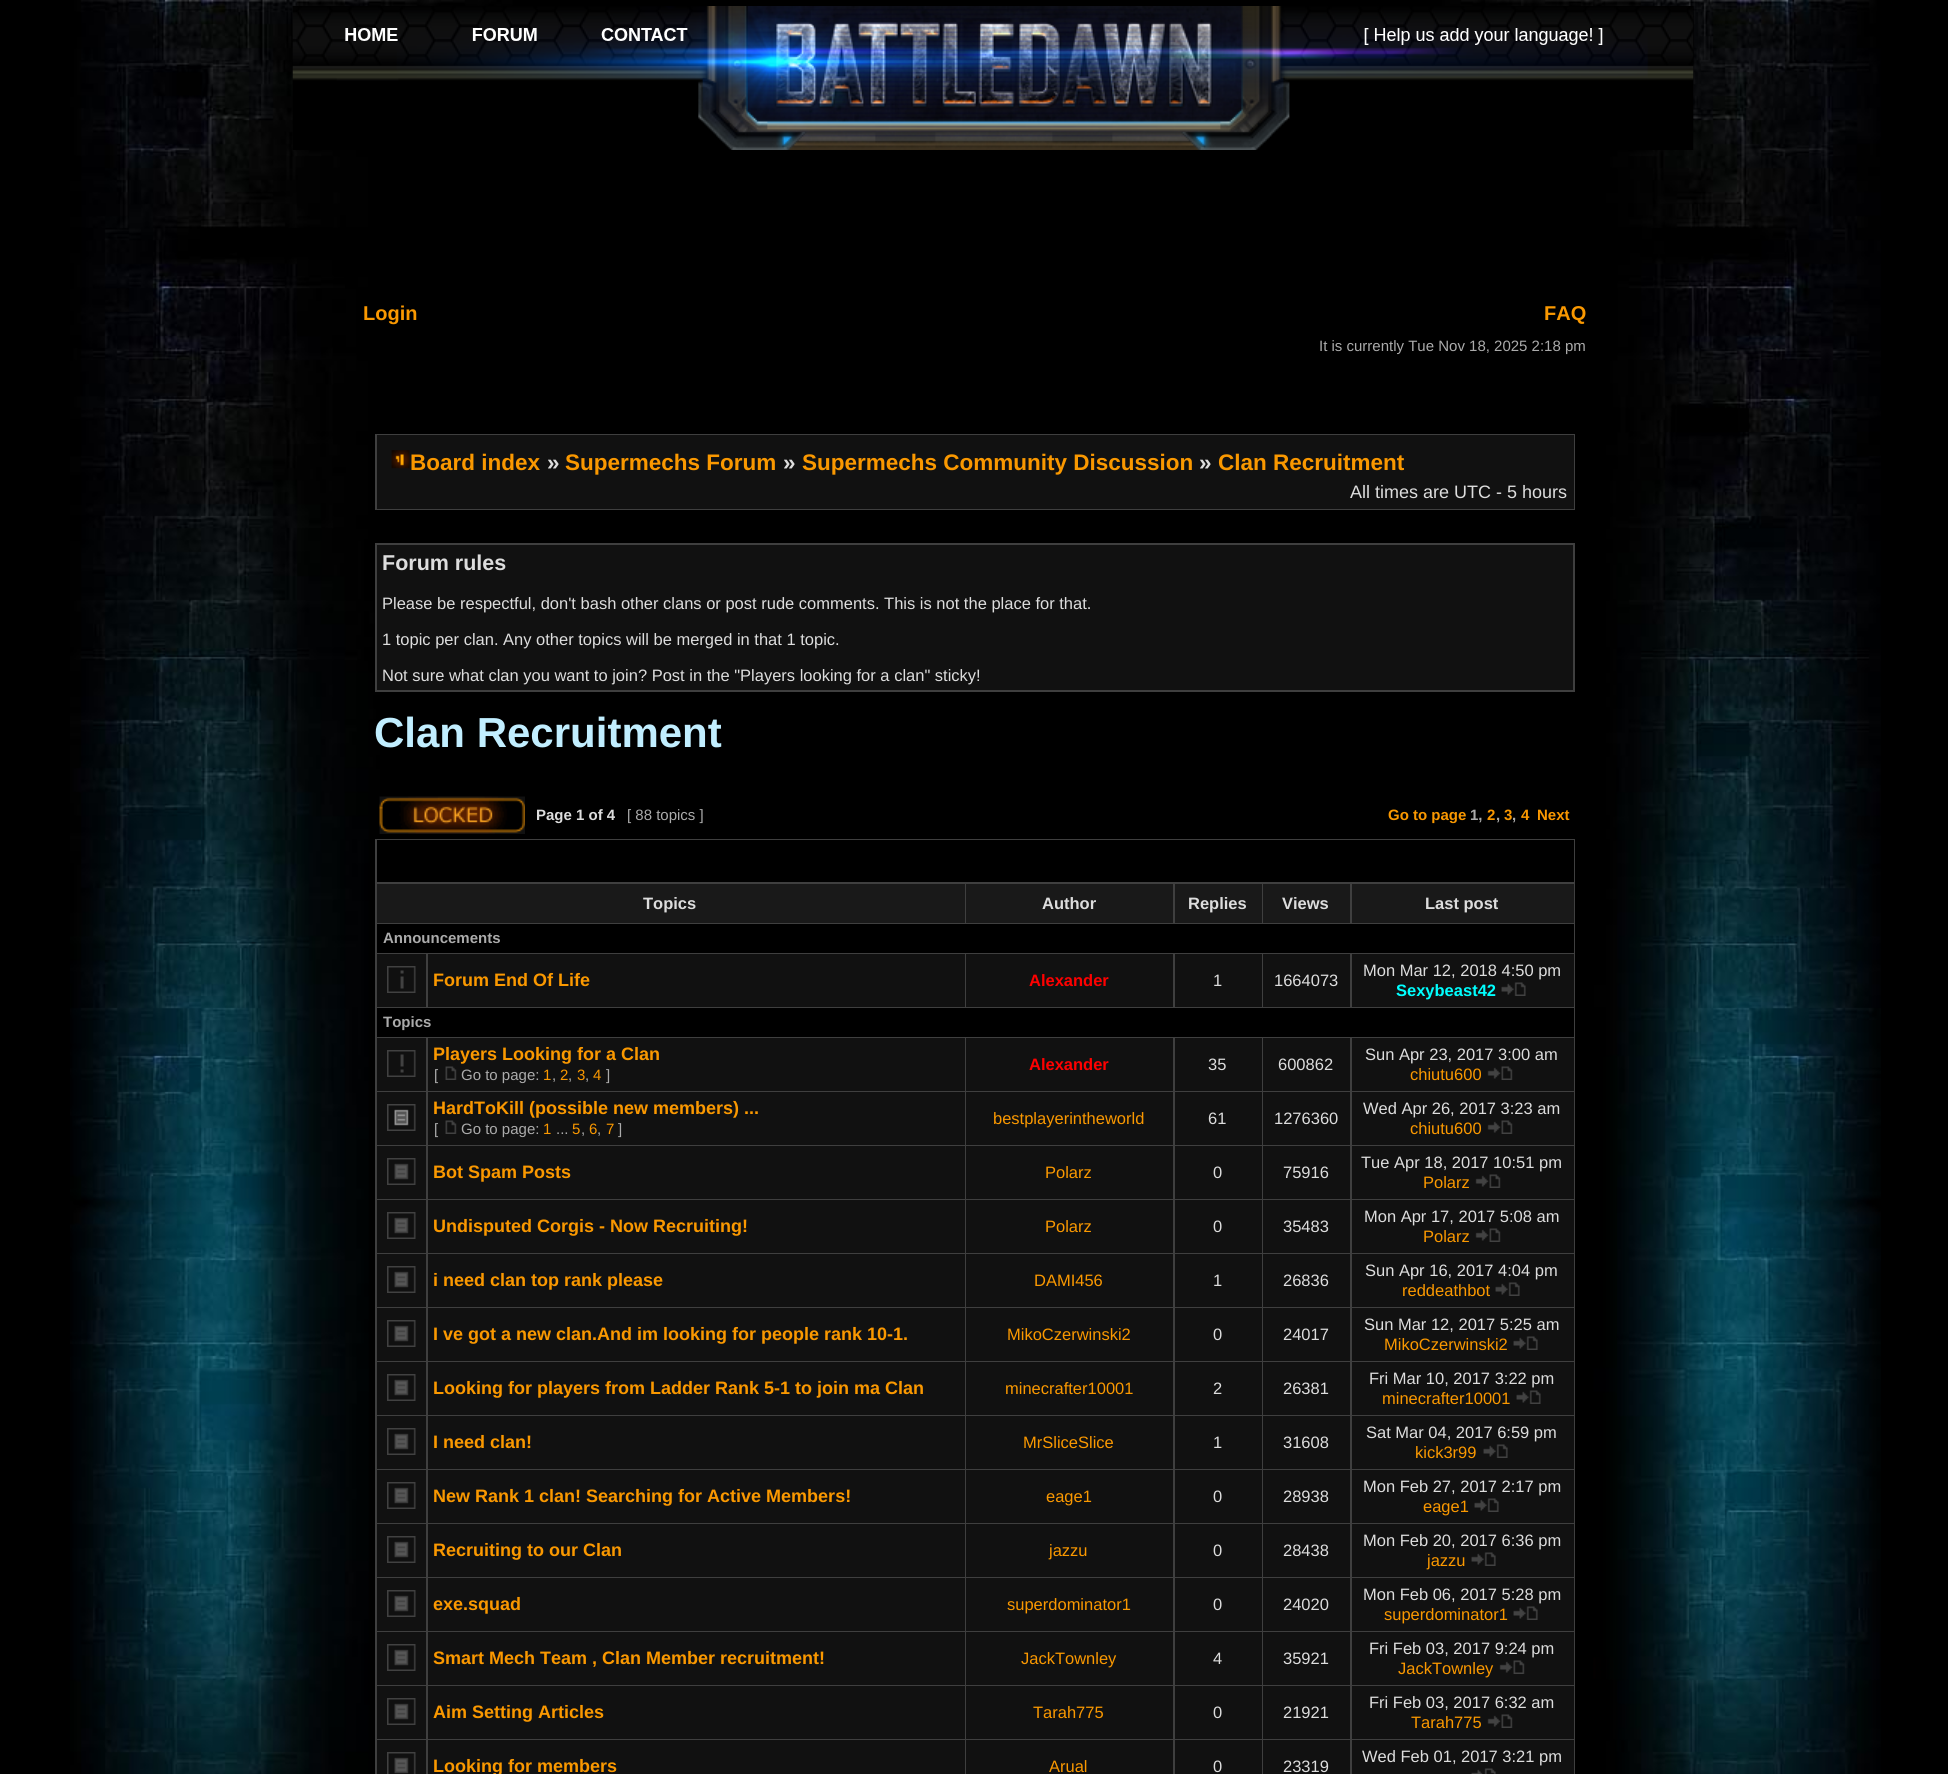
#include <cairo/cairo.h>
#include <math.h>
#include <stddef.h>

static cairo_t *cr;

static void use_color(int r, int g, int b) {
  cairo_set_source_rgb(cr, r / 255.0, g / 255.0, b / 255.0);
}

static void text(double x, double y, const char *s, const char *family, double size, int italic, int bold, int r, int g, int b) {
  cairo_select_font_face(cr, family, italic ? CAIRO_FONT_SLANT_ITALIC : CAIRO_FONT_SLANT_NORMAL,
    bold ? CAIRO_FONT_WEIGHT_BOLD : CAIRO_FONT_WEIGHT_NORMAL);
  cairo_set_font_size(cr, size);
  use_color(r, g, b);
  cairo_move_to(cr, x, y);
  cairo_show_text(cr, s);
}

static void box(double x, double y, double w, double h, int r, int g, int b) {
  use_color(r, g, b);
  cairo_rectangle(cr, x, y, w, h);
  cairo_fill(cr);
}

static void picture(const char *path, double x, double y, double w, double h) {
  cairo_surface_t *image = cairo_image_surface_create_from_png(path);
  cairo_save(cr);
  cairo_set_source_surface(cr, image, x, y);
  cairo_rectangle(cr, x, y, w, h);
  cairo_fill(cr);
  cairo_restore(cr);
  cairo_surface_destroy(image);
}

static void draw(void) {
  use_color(0, 0, 0);
  cairo_paint(cr);
  picture("img_01.png", 70, 0, 1811, 1774);
  picture("img_02.png", 292, 6, 1402, 144);
  box(375, 434, 1200, 76, 63, 63, 63);
  box(377, 435, 1197, 74, 17, 17, 17);
  picture("img_03.png", 391, 450, 19, 19);
  cairo_rectangle(cr, 376, 544, 1198, 147);
  cairo_fill_preserve(cr);
  use_color(63, 63, 63);
  cairo_stroke(cr);
  picture("img_04.png", 379, 796, 146, 38);
  box(375, 839, 1200, 935, 63, 63, 63);
  box(377, 840, 1197, 42, 0, 0, 0);
  box(377, 884, 588, 39, 25, 25, 25);
  box(966, 884, 207, 39, 25, 25, 25);
  box(1175, 884, 87, 39, 25, 25, 25);
  box(1263, 884, 87, 39, 25, 25, 25);
  box(1352, 884, 222, 39, 25, 25, 25);
  box(377, 924, 1197, 29, 0, 0, 0);
  box(377, 954, 49, 53, 17, 17, 17);
  picture("img_05.png", 387, 966, 29, 27);
  box(428, 954, 537, 53, 17, 17, 17);
  box(966, 954, 207, 53, 17, 17, 17);
  box(1175, 954, 87, 53, 17, 17, 17);
  box(1263, 954, 87, 53, 17, 17, 17);
  box(1352, 954, 222, 53, 17, 17, 17);
  picture("img_06.png", 1501, 982, 25, 14);
  box(377, 1008, 1197, 29, 0, 0, 0);
  box(377, 1038, 49, 53, 17, 17, 17);
  picture("img_07.png", 387, 1050, 29, 27);
  box(428, 1038, 537, 53, 17, 17, 17);
  picture("img_08.png", 445, 1066, 12, 14);
  box(966, 1038, 207, 53, 17, 17, 17);
  box(1175, 1038, 87, 53, 17, 17, 17);
  box(1263, 1038, 87, 53, 17, 17, 17);
  box(1352, 1038, 222, 53, 17, 17, 17);
  picture("img_09.png", 1487, 1066, 26, 14);
  box(377, 1092, 49, 53, 17, 17, 17);
  picture("img_10.png", 387, 1104, 29, 27);
  box(428, 1092, 537, 53, 17, 17, 17);
  picture("img_08.png", 445, 1120, 12, 14);
  box(966, 1092, 207, 53, 17, 17, 17);
  box(1175, 1092, 87, 53, 17, 17, 17);
  box(1263, 1092, 87, 53, 17, 17, 17);
  box(1352, 1092, 222, 53, 17, 17, 17);
  picture("img_09.png", 1487, 1120, 26, 14);
  box(377, 1146, 49, 53, 17, 17, 17);
  picture("img_11.png", 387, 1158, 29, 27);
  box(428, 1146, 537, 53, 17, 17, 17);
  box(966, 1146, 207, 53, 17, 17, 17);
  box(1175, 1146, 87, 53, 17, 17, 17);
  box(1263, 1146, 87, 53, 17, 17, 17);
  box(1352, 1146, 222, 53, 17, 17, 17);
  picture("img_09.png", 1475, 1174, 26, 14);
  box(377, 1200, 49, 53, 17, 17, 17);
  picture("img_11.png", 387, 1212, 29, 27);
  box(428, 1200, 537, 53, 17, 17, 17);
  box(966, 1200, 207, 53, 17, 17, 17);
  box(1175, 1200, 87, 53, 17, 17, 17);
  box(1263, 1200, 87, 53, 17, 17, 17);
  box(1352, 1200, 222, 53, 17, 17, 17);
  picture("img_09.png", 1475, 1228, 26, 14);
  box(377, 1254, 49, 53, 17, 17, 17);
  picture("img_11.png", 387, 1266, 29, 27);
  box(428, 1254, 537, 53, 17, 17, 17);
  box(966, 1254, 207, 53, 17, 17, 17);
  box(1175, 1254, 87, 53, 17, 17, 17);
  box(1263, 1254, 87, 53, 17, 17, 17);
  box(1352, 1254, 222, 53, 17, 17, 17);
  picture("img_12.png", 1495, 1282, 25, 14);
  box(377, 1308, 49, 53, 17, 17, 17);
  picture("img_11.png", 387, 1320, 29, 27);
  box(428, 1308, 537, 53, 17, 17, 17);
  box(966, 1308, 207, 53, 17, 17, 17);
  box(1175, 1308, 87, 53, 17, 17, 17);
  box(1263, 1308, 87, 53, 17, 17, 17);
  box(1352, 1308, 222, 53, 17, 17, 17);
  picture("img_12.png", 1513, 1336, 25, 14);
  box(377, 1362, 49, 53, 17, 17, 17);
  picture("img_11.png", 387, 1374, 29, 27);
  box(428, 1362, 537, 53, 17, 17, 17);
  box(966, 1362, 207, 53, 17, 17, 17);
  box(1175, 1362, 87, 53, 17, 17, 17);
  box(1263, 1362, 87, 53, 17, 17, 17);
  box(1352, 1362, 222, 53, 17, 17, 17);
  picture("img_13.png", 1516, 1390, 25, 14);
  box(377, 1416, 49, 53, 17, 17, 17);
  picture("img_11.png", 387, 1428, 29, 27);
  box(428, 1416, 537, 53, 17, 17, 17);
  box(966, 1416, 207, 53, 17, 17, 17);
  box(1175, 1416, 87, 53, 17, 17, 17);
  box(1263, 1416, 87, 53, 17, 17, 17);
  box(1352, 1416, 222, 53, 17, 17, 17);
  picture("img_12.png", 1483, 1444, 25, 14);
  box(377, 1470, 49, 53, 17, 17, 17);
  picture("img_11.png", 387, 1482, 29, 27);
  box(428, 1470, 537, 53, 17, 17, 17);
  box(966, 1470, 207, 53, 17, 17, 17);
  box(1175, 1470, 87, 53, 17, 17, 17);
  box(1263, 1470, 87, 53, 17, 17, 17);
  box(1352, 1470, 222, 53, 17, 17, 17);
  picture("img_12.png", 1474, 1498, 25, 14);
  box(377, 1524, 49, 53, 17, 17, 17);
  picture("img_11.png", 387, 1536, 29, 27);
  box(428, 1524, 537, 53, 17, 17, 17);
  box(966, 1524, 207, 53, 17, 17, 17);
  box(1175, 1524, 87, 53, 17, 17, 17);
  box(1263, 1524, 87, 53, 17, 17, 17);
  box(1352, 1524, 222, 53, 17, 17, 17);
  picture("img_12.png", 1471, 1552, 25, 14);
  box(377, 1578, 49, 53, 17, 17, 17);
  picture("img_11.png", 387, 1590, 29, 27);
  box(428, 1578, 537, 53, 17, 17, 17);
  box(966, 1578, 207, 53, 17, 17, 17);
  box(1175, 1578, 87, 53, 17, 17, 17);
  box(1263, 1578, 87, 53, 17, 17, 17);
  box(1352, 1578, 222, 53, 17, 17, 17);
  picture("img_12.png", 1513, 1606, 25, 14);
  box(377, 1632, 49, 53, 17, 17, 17);
  picture("img_11.png", 387, 1644, 29, 27);
  box(428, 1632, 537, 53, 17, 17, 17);
  box(966, 1632, 207, 53, 17, 17, 17);
  box(1175, 1632, 87, 53, 17, 17, 17);
  box(1263, 1632, 87, 53, 17, 17, 17);
  box(1352, 1632, 222, 53, 17, 17, 17);
  picture("img_09.png", 1499, 1660, 26, 14);
  box(377, 1686, 49, 53, 17, 17, 17);
  picture("img_11.png", 387, 1698, 29, 27);
  box(428, 1686, 537, 53, 17, 17, 17);
  box(966, 1686, 207, 53, 17, 17, 17);
  box(1175, 1686, 87, 53, 17, 17, 17);
  box(1263, 1686, 87, 53, 17, 17, 17);
  box(1352, 1686, 222, 53, 17, 17, 17);
  picture("img_09.png", 1487, 1714, 26, 14);
  box(377, 1740, 49, 34, 17, 17, 17);
  picture("img_14.png", 387, 1752, 29, 22);
  box(428, 1740, 537, 34, 17, 17, 17);
  box(966, 1740, 207, 34, 17, 17, 17);
  box(1175, 1740, 87, 34, 17, 17, 17);
  box(1263, 1740, 87, 34, 17, 17, 17);
  box(1352, 1740, 222, 34, 17, 17, 17);
  picture("img_15.png", 1471, 1768, 25, 6);
  text(363, 320, "Login", "Liberation Sans", 20, 0, 1, 250, 152, 0);
  text(1544, 320, "FAQ", "Liberation Sans", 20, 0, 1, 250, 152, 0);
  text(1319, 351, "It is currently Tue Nov 18, 2025 2:18 pm", "Liberation Sans", 15, 0, 0, 171, 171, 171);
  text(410, 470, "Board index", "Liberation Sans", 22.5, 0, 1, 250, 152, 0);
  text(547, 470, "»", "Liberation Sans", 22.5, 0, 1, 221, 221, 221);
  text(565, 470, "Supermechs Forum", "Liberation Sans", 22.5, 0, 1, 250, 152, 0);
  text(783, 470, "»", "Liberation Sans", 22.5, 0, 1, 221, 221, 221);
  text(802, 470, "Supermechs Community Discussion", "Liberation Sans", 22.5, 0, 1, 250, 152, 0);
  text(1199, 470, "»", "Liberation Sans", 22.5, 0, 1, 221, 221, 221);
  text(1218, 470, "Clan Recruitment", "Liberation Sans", 22.5, 0, 1, 250, 152, 0);
  text(1350, 498, "All times are UTC - 5 hours", "Liberation Sans", 18, 0, 0, 221, 221, 221);
  text(382, 570, "Forum rules", "Liberation Sans", 21.5, 0, 1, 221, 221, 221);
  text(382, 609, "Please be respectful, don't bash other clans or post rude comments. This is not the place for that.", "Liberation Sans", 16.5, 0, 0, 221, 221, 221);
  text(382, 645, "1 topic per clan. Any other topics will be merged in that 1 topic.", "Liberation Sans", 16.5, 0, 0, 221, 221, 221);
  text(382, 681, "Not sure what clan you want to join? Post in the \"Players looking for a clan\" sticky!", "Liberation Sans", 16.5, 0, 0, 221, 221, 221);
  text(374, 747, "Clan Recruitment", "Liberation Sans", 42, 0, 1, 193, 238, 255);
  text(536, 820, "Page 1 of 4", "Liberation Sans", 15, 0, 1, 221, 221, 221);
  text(627, 820, "[ 88 topics ]", "Liberation Sans", 15, 0, 0, 171, 171, 171);
  text(1388, 820, "Go to page", "Liberation Sans", 15, 0, 1, 250, 152, 0);
  text(1470, 820, "1,", "Liberation Sans", 15, 0, 1, 171, 171, 171);
  text(1487, 820, "2", "Liberation Sans", 15, 0, 1, 250, 152, 0);
  text(1496, 820, ",", "Liberation Sans", 15, 0, 1, 171, 171, 171);
  text(1504, 820, "3", "Liberation Sans", 15, 0, 1, 250, 152, 0);
  text(1512, 820, ",", "Liberation Sans", 15, 0, 1, 171, 171, 171);
  text(1521, 820, "4", "Liberation Sans", 15, 0, 1, 250, 152, 0);
  text(1537, 820, "Next", "Liberation Sans", 15, 0, 1, 250, 152, 0);
  text(643, 909, "Topics", "Liberation Sans", 16.5, 0, 1, 221, 221, 221);
  text(1042, 909, "Author", "Liberation Sans", 16.5, 0, 1, 221, 221, 221);
  text(1188, 909, "Replies", "Liberation Sans", 16.5, 0, 1, 221, 221, 221);
  text(1282, 909, "Views", "Liberation Sans", 16.5, 0, 1, 221, 221, 221);
  text(1425, 909, "Last post", "Liberation Sans", 16.5, 0, 1, 221, 221, 221);
  text(383, 943, "Announcements", "Liberation Sans", 15, 0, 1, 171, 171, 171);
  text(433, 986, "Forum End Of Life", "Liberation Sans", 18, 0, 1, 250, 152, 0);
  text(1029, 986, "Alexander", "Liberation Sans", 16.5, 0, 1, 255, 0, 0);
  text(1213, 986, "1", "Liberation Sans", 16.5, 0, 0, 221, 221, 221);
  text(1274, 986, "1664073", "Liberation Sans", 16.5, 0, 0, 221, 221, 221);
  text(1363, 976, "Mon Mar 12, 2018 4:50 pm", "Liberation Sans", 16.5, 0, 0, 221, 221, 221);
  text(1396, 996, "Sexybeast42", "Liberation Sans", 16.5, 0, 1, 0, 255, 255);
  text(383, 1027, "Topics", "Liberation Sans", 15, 0, 1, 171, 171, 171);
  text(433, 1060, "Players Looking for a Clan", "Liberation Sans", 18, 0, 1, 250, 152, 0);
  text(434, 1080, "[", "Liberation Sans", 15, 0, 0, 171, 171, 171);
  text(461, 1080, "Go to page:", "Liberation Sans", 15, 0, 0, 171, 171, 171);
  text(543, 1080, "1", "Liberation Sans", 15, 0, 0, 250, 152, 0);
  text(552, 1080, ",", "Liberation Sans", 15, 0, 0, 171, 171, 171);
  text(560, 1080, "2", "Liberation Sans", 15, 0, 0, 250, 152, 0);
  text(568, 1080, ",", "Liberation Sans", 15, 0, 0, 171, 171, 171);
  text(577, 1080, "3", "Liberation Sans", 15, 0, 0, 250, 152, 0);
  text(585, 1080, ",", "Liberation Sans", 15, 0, 0, 171, 171, 171);
  text(593, 1080, "4", "Liberation Sans", 15, 0, 0, 250, 152, 0);
  text(606, 1080, "]", "Liberation Sans", 15, 0, 0, 171, 171, 171);
  text(1029, 1070, "Alexander", "Liberation Sans", 16.5, 0, 1, 255, 0, 0);
  text(1208, 1070, "35", "Liberation Sans", 16.5, 0, 0, 221, 221, 221);
  text(1278, 1070, "600862", "Liberation Sans", 16.5, 0, 0, 221, 221, 221);
  text(1365, 1060, "Sun Apr 23, 2017 3:00 am", "Liberation Sans", 16.5, 0, 0, 221, 221, 221);
  text(1410, 1080, "chiutu600", "Liberation Sans", 16.5, 0, 0, 250, 152, 0);
  text(433, 1114, "HardToKill (possible new members) ...", "Liberation Sans", 18, 0, 1, 250, 152, 0);
  text(434, 1134, "[", "Liberation Sans", 15, 0, 0, 171, 171, 171);
  text(461, 1134, "Go to page:", "Liberation Sans", 15, 0, 0, 171, 171, 171);
  text(543, 1134, "1", "Liberation Sans", 15, 0, 0, 250, 152, 0);
  text(556, 1134, "...", "Liberation Sans", 15, 0, 0, 171, 171, 171);
  text(572, 1134, "5", "Liberation Sans", 15, 0, 0, 250, 152, 0);
  text(581, 1134, ",", "Liberation Sans", 15, 0, 0, 171, 171, 171);
  text(589, 1134, "6", "Liberation Sans", 15, 0, 0, 250, 152, 0);
  text(597, 1134, ",", "Liberation Sans", 15, 0, 0, 171, 171, 171);
  text(606, 1134, "7", "Liberation Sans", 15, 0, 0, 250, 152, 0);
  text(618, 1134, "]", "Liberation Sans", 15, 0, 0, 171, 171, 171);
  text(993, 1124, "bestplayerintheworld", "Liberation Sans", 16.5, 0, 0, 250, 152, 0);
  text(1208, 1124, "61", "Liberation Sans", 16.5, 0, 0, 221, 221, 221);
  text(1274, 1124, "1276360", "Liberation Sans", 16.5, 0, 0, 221, 221, 221);
  text(1363, 1114, "Wed Apr 26, 2017 3:23 am", "Liberation Sans", 16.5, 0, 0, 221, 221, 221);
  text(1410, 1134, "chiutu600", "Liberation Sans", 16.5, 0, 0, 250, 152, 0);
  text(433, 1178, "Bot Spam Posts", "Liberation Sans", 18, 0, 1, 250, 152, 0);
  text(1045, 1178, "Polarz", "Liberation Sans", 16.5, 0, 0, 250, 152, 0);
  text(1213, 1178, "0", "Liberation Sans", 16.5, 0, 0, 221, 221, 221);
  text(1283, 1178, "75916", "Liberation Sans", 16.5, 0, 0, 221, 221, 221);
  text(1361, 1168, "Tue Apr 18, 2017 10:51 pm", "Liberation Sans", 16.5, 0, 0, 221, 221, 221);
  text(1423, 1188, "Polarz", "Liberation Sans", 16.5, 0, 0, 250, 152, 0);
  text(433, 1232, "Undisputed Corgis - Now Recruiting!", "Liberation Sans", 18, 0, 1, 250, 152, 0);
  text(1045, 1232, "Polarz", "Liberation Sans", 16.5, 0, 0, 250, 152, 0);
  text(1213, 1232, "0", "Liberation Sans", 16.5, 0, 0, 221, 221, 221);
  text(1283, 1232, "35483", "Liberation Sans", 16.5, 0, 0, 221, 221, 221);
  text(1364, 1222, "Mon Apr 17, 2017 5:08 am", "Liberation Sans", 16.5, 0, 0, 221, 221, 221);
  text(1423, 1242, "Polarz", "Liberation Sans", 16.5, 0, 0, 250, 152, 0);
  text(433, 1286, "i need clan top rank please", "Liberation Sans", 18, 0, 1, 250, 152, 0);
  text(1034, 1286, "DAMI456", "Liberation Sans", 16.5, 0, 0, 250, 152, 0);
  text(1213, 1286, "1", "Liberation Sans", 16.5, 0, 0, 221, 221, 221);
  text(1283, 1286, "26836", "Liberation Sans", 16.5, 0, 0, 221, 221, 221);
  text(1365, 1276, "Sun Apr 16, 2017 4:04 pm", "Liberation Sans", 16.5, 0, 0, 221, 221, 221);
  text(1402, 1296, "reddeathbot", "Liberation Sans", 16.5, 0, 0, 250, 152, 0);
  text(433, 1340, "I ve got a new clan.And im looking for people rank 10-1.", "Liberation Sans", 18, 0, 1, 250, 152, 0);
  text(1007, 1340, "MikoCzerwinski2", "Liberation Sans", 16.5, 0, 0, 250, 152, 0);
  text(1213, 1340, "0", "Liberation Sans", 16.5, 0, 0, 221, 221, 221);
  text(1283, 1340, "24017", "Liberation Sans", 16.5, 0, 0, 221, 221, 221);
  text(1364, 1330, "Sun Mar 12, 2017 5:25 am", "Liberation Sans", 16.5, 0, 0, 221, 221, 221);
  text(1384, 1350, "MikoCzerwinski2", "Liberation Sans", 16.5, 0, 0, 250, 152, 0);
  text(433, 1394, "Looking for players from Ladder Rank 5-1 to join ma Clan", "Liberation Sans", 18, 0, 1, 250, 152, 0);
  text(1005, 1394, "minecrafter10001", "Liberation Sans", 16.5, 0, 0, 250, 152, 0);
  text(1213, 1394, "2", "Liberation Sans", 16.5, 0, 0, 221, 221, 221);
  text(1283, 1394, "26381", "Liberation Sans", 16.5, 0, 0, 221, 221, 221);
  text(1369, 1384, "Fri Mar 10, 2017 3:22 pm", "Liberation Sans", 16.5, 0, 0, 221, 221, 221);
  text(1382, 1404, "minecrafter10001", "Liberation Sans", 16.5, 0, 0, 250, 152, 0);
  text(433, 1448, "I need clan!", "Liberation Sans", 18, 0, 1, 250, 152, 0);
  text(1023, 1448, "MrSliceSlice", "Liberation Sans", 16.5, 0, 0, 250, 152, 0);
  text(1213, 1448, "1", "Liberation Sans", 16.5, 0, 0, 221, 221, 221);
  text(1283, 1448, "31608", "Liberation Sans", 16.5, 0, 0, 221, 221, 221);
  text(1366, 1438, "Sat Mar 04, 2017 6:59 pm", "Liberation Sans", 16.5, 0, 0, 221, 221, 221);
  text(1415, 1458, "kick3r99", "Liberation Sans", 16.5, 0, 0, 250, 152, 0);
  text(433, 1502, "New Rank 1 clan! Searching for Active Members!", "Liberation Sans", 18, 0, 1, 250, 152, 0);
  text(1046, 1502, "eage1", "Liberation Sans", 16.5, 0, 0, 250, 152, 0);
  text(1213, 1502, "0", "Liberation Sans", 16.5, 0, 0, 221, 221, 221);
  text(1283, 1502, "28938", "Liberation Sans", 16.5, 0, 0, 221, 221, 221);
  text(1363, 1492, "Mon Feb 27, 2017 2:17 pm", "Liberation Sans", 16.5, 0, 0, 221, 221, 221);
  text(1423, 1512, "eage1", "Liberation Sans", 16.5, 0, 0, 250, 152, 0);
  text(433, 1556, "Recruiting to our Clan", "Liberation Sans", 18, 0, 1, 250, 152, 0);
  text(1049, 1556, "jazzu", "Liberation Sans", 16.5, 0, 0, 250, 152, 0);
  text(1213, 1556, "0", "Liberation Sans", 16.5, 0, 0, 221, 221, 221);
  text(1283, 1556, "28438", "Liberation Sans", 16.5, 0, 0, 221, 221, 221);
  text(1363, 1546, "Mon Feb 20, 2017 6:36 pm", "Liberation Sans", 16.5, 0, 0, 221, 221, 221);
  text(1427, 1566, "jazzu", "Liberation Sans", 16.5, 0, 0, 250, 152, 0);
  text(433, 1610, "exe.squad", "Liberation Sans", 18, 0, 1, 250, 152, 0);
  text(1007, 1610, "superdominator1", "Liberation Sans", 16.5, 0, 0, 250, 152, 0);
  text(1213, 1610, "0", "Liberation Sans", 16.5, 0, 0, 221, 221, 221);
  text(1283, 1610, "24020", "Liberation Sans", 16.5, 0, 0, 221, 221, 221);
  text(1363, 1600, "Mon Feb 06, 2017 5:28 pm", "Liberation Sans", 16.5, 0, 0, 221, 221, 221);
  text(1384, 1620, "superdominator1", "Liberation Sans", 16.5, 0, 0, 250, 152, 0);
  text(433, 1664, "Smart Mech Team , Clan Member recruitment!", "Liberation Sans", 18, 0, 1, 250, 152, 0);
  text(1021, 1664, "JackTownley", "Liberation Sans", 16.5, 0, 0, 250, 152, 0);
  text(1213, 1664, "4", "Liberation Sans", 16.5, 0, 0, 221, 221, 221);
  text(1283, 1664, "35921", "Liberation Sans", 16.5, 0, 0, 221, 221, 221);
  text(1369, 1654, "Fri Feb 03, 2017 9:24 pm", "Liberation Sans", 16.5, 0, 0, 221, 221, 221);
  text(1398, 1674, "JackTownley", "Liberation Sans", 16.5, 0, 0, 250, 152, 0);
  text(433, 1718, "Aim Setting Articles", "Liberation Sans", 18, 0, 1, 250, 152, 0);
  text(1033, 1718, "Tarah775", "Liberation Sans", 16.5, 0, 0, 250, 152, 0);
  text(1213, 1718, "0", "Liberation Sans", 16.5, 0, 0, 221, 221, 221);
  text(1283, 1718, "21921", "Liberation Sans", 16.5, 0, 0, 221, 221, 221);
  text(1369, 1708, "Fri Feb 03, 2017 6:32 am", "Liberation Sans", 16.5, 0, 0, 221, 221, 221);
  text(1411, 1728, "Tarah775", "Liberation Sans", 16.5, 0, 0, 250, 152, 0);
  text(433, 1772, "Looking for members", "Liberation Sans", 18, 0, 1, 250, 152, 0);
  text(1049, 1772, "Arual", "Liberation Sans", 16.5, 0, 0, 250, 152, 0);
  text(1213, 1772, "0", "Liberation Sans", 16.5, 0, 0, 221, 221, 221);
  text(1283, 1772, "23319", "Liberation Sans", 16.5, 0, 0, 221, 221, 221);
  text(1362, 1762, "Wed Feb 01, 2017 3:21 pm", "Liberation Sans", 16.5, 0, 0, 221, 221, 221);
}

int main(void) {
  cairo_surface_t *surface = cairo_image_surface_create(CAIRO_FORMAT_RGB24, 1948, 1774);
  cr = cairo_create(surface);
  cairo_font_options_t *options = cairo_font_options_create();
  cairo_font_options_set_hint_metrics(options, CAIRO_HINT_METRICS_OFF);
  cairo_font_options_set_hint_style(options, CAIRO_HINT_STYLE_NONE);
  cairo_set_font_options(cr, options);
  cairo_set_miter_limit(cr, 4);
  draw();
  cairo_surface_write_to_png(surface, "out.png");
  cairo_font_options_destroy(options);
  cairo_destroy(cr);
  cairo_surface_destroy(surface);
  return 0;
}
